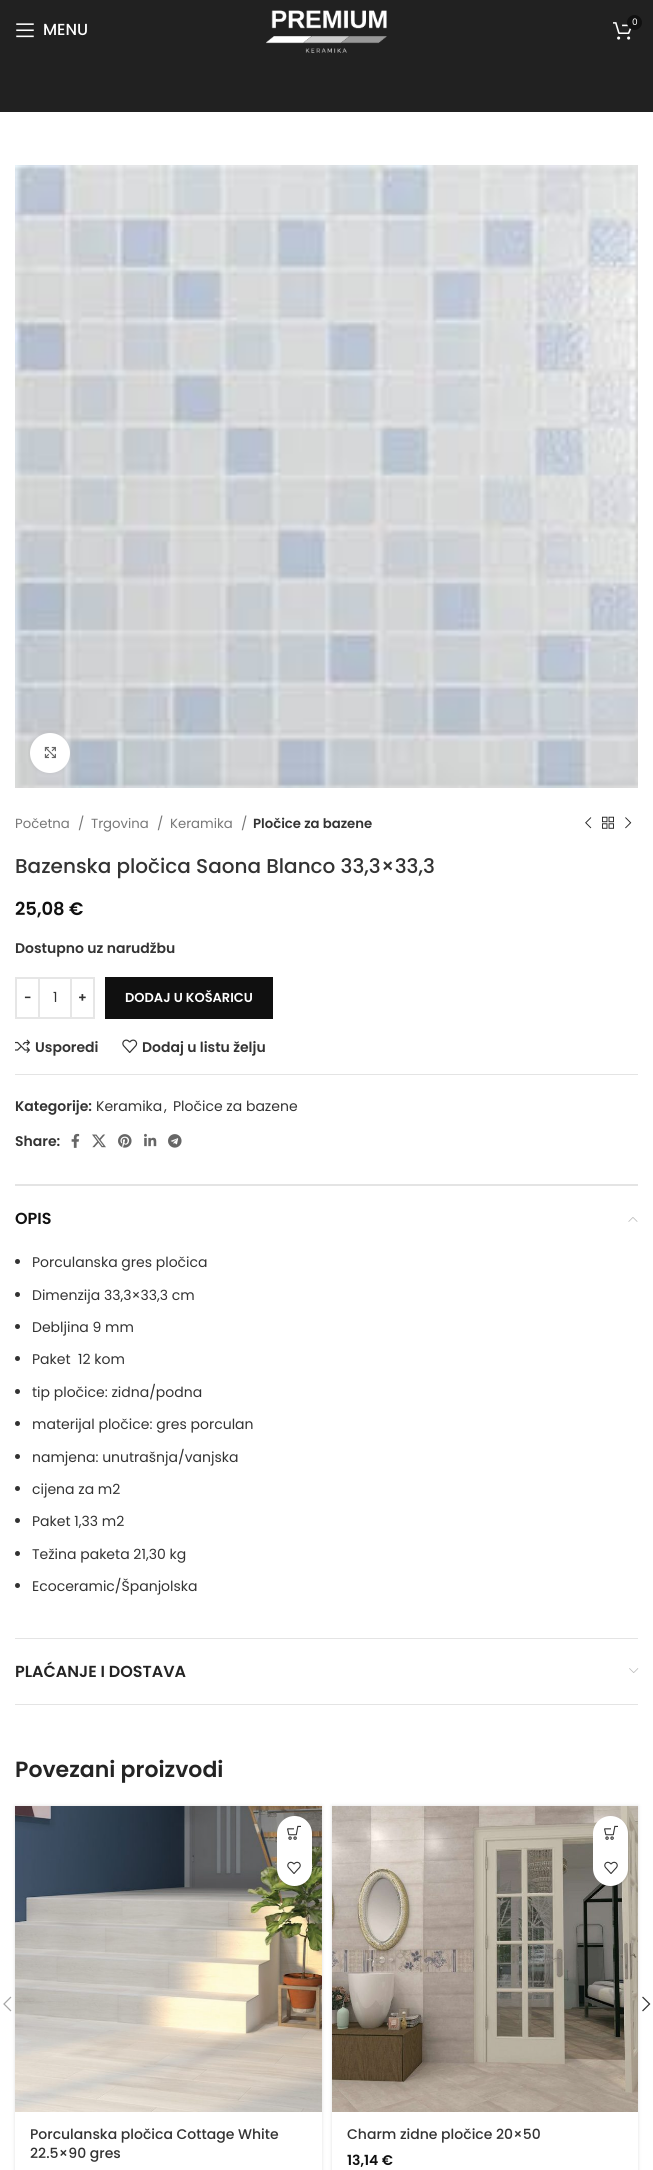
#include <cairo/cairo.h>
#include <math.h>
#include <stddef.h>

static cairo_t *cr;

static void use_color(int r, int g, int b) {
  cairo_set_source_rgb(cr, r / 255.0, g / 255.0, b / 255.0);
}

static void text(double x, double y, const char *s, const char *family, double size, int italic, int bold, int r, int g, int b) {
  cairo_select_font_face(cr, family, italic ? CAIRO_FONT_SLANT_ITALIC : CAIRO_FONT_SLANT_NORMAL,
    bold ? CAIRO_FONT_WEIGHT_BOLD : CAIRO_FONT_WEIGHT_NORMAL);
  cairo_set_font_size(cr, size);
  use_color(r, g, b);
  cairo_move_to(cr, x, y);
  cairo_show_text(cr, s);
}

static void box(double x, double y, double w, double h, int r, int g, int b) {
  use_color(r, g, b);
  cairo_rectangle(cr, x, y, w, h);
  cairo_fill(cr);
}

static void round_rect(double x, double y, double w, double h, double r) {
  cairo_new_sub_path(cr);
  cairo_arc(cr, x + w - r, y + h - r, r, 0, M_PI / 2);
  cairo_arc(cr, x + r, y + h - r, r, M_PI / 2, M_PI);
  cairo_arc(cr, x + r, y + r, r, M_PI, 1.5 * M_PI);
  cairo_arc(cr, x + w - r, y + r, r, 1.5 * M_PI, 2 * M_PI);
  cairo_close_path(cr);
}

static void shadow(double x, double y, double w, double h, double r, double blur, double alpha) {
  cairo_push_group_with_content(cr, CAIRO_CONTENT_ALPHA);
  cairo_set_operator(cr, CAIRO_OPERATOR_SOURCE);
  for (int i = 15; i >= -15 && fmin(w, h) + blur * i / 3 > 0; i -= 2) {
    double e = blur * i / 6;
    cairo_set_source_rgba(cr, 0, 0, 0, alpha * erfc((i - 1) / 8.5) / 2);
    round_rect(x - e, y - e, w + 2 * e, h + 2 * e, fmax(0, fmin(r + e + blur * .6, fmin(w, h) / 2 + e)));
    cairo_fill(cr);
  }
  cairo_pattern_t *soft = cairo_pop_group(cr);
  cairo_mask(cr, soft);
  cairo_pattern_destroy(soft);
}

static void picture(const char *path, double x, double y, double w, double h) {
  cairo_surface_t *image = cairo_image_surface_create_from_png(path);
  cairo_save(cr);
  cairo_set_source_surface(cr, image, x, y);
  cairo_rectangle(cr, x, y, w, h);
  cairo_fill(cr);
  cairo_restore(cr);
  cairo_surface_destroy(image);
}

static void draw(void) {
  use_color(255, 255, 255);
  cairo_paint(cr);
  box(0, 0, 653, 112, 33, 33, 33);
  picture("img_01.png", 266, 10, 121, 43);
  picture("img_02.png", 613, 22, 19, 18);
  use_color(16, 16, 16);
  cairo_arc(cr, 634.5, 22.5, 7.5, 0, 2 * M_PI);
  cairo_fill(cr);
  picture("img_03.png", 16, 23, 18, 15);
  picture("img_04.png", 15, 165, 623, 623);
  use_color(0, 0, 0);
  shadow(30, 733, 40, 40, 20, 2.5, 0.08);
  use_color(255, 255, 255);
  cairo_arc(cr, 50, 753, 20, 0, 2 * M_PI);
  cairo_fill(cr);
  picture("img_05.png", 44, 746, 12, 13);
  picture("img_06.png", 585, 817, 7, 12);
  picture("img_07.png", 602, 816, 12, 13);
  picture("img_08.png", 625, 817, 7, 12);
  cairo_rectangle(cr, 16, 978, 23, 40);
  use_color(230, 230, 230);
  cairo_stroke(cr);
  box(40, 977, 30, 2, 230, 230, 230);
  box(40, 1017, 30, 2, 230, 230, 230);
  cairo_rectangle(cr, 71, 978, 23, 40);
  cairo_stroke(cr);
  box(105, 977, 168, 42, 16, 16, 16);
  picture("img_09.png", 15, 1039, 15, 14);
  picture("img_10.png", 122, 1039, 16, 14);
  box(15, 1074, 623, 1, 228, 228, 228);
  picture("img_11.png", 71, 1133, 9, 15);
  picture("img_12.png", 92, 1134, 14, 14);
  picture("img_13.png", 118, 1134, 14, 14);
  picture("img_14.png", 144, 1133, 13, 14);
  picture("img_15.png", 168, 1134, 14, 14);
  box(15, 1184, 623, 2, 228, 228, 228);
  box(15, 1638, 623, 1, 228, 228, 228);
  picture("img_16.png", 628, 1217, 10, 5);
  use_color(51, 51, 51);
  cairo_arc(cr, 17.5, 1261.5, 2.5, 0, 2 * M_PI);
  cairo_fill(cr);
  cairo_arc(cr, 17.5, 1294.5, 2.5, 0, 2 * M_PI);
  cairo_fill(cr);
  cairo_arc(cr, 17.5, 1326.5, 2.5, 0, 2 * M_PI);
  cairo_fill(cr);
  cairo_arc(cr, 17.5, 1358.5, 2.5, 0, 2 * M_PI);
  cairo_fill(cr);
  cairo_arc(cr, 17.5, 1391.5, 2.5, 0, 2 * M_PI);
  cairo_fill(cr);
  cairo_arc(cr, 17.5, 1423.5, 2.5, 0, 2 * M_PI);
  cairo_fill(cr);
  cairo_arc(cr, 17.5, 1456.5, 2.5, 0, 2 * M_PI);
  cairo_fill(cr);
  cairo_arc(cr, 17.5, 1488.5, 2.5, 0, 2 * M_PI);
  cairo_fill(cr);
  cairo_arc(cr, 17.5, 1520.5, 2.5, 0, 2 * M_PI);
  cairo_fill(cr);
  cairo_arc(cr, 17.5, 1553.5, 2.5, 0, 2 * M_PI);
  cairo_fill(cr);
  cairo_arc(cr, 17.5, 1585.5, 2.5, 0, 2 * M_PI);
  cairo_fill(cr);
  box(15, 1704, 623, 1, 228, 228, 228);
  picture("img_17.png", 629, 1668, 10, 5);
  cairo_save(cr);
  cairo_set_fill_rule(cr, CAIRO_FILL_RULE_EVEN_ODD);
  cairo_new_path(cr);
  cairo_move_to(cr, 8, 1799);
  cairo_line_to(cr, 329, 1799);
  cairo_line_to(cr, 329, 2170);
  cairo_line_to(cr, 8, 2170);
  cairo_close_path(cr);
  cairo_move_to(cr, 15, 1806);
  cairo_line_to(cr, 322, 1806);
  cairo_line_to(cr, 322, 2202);
  cairo_line_to(cr, 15, 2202);
  cairo_close_path(cr);
  cairo_clip(cr);
  use_color(0, 0, 0);
  shadow(15, 1806, 307, 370, 0, 2, 0.12);
  cairo_restore(cr);
  picture("img_18.png", 3, 1996, 9, 16);
  cairo_save(cr);
  cairo_set_fill_rule(cr, CAIRO_FILL_RULE_EVEN_ODD);
  cairo_new_path(cr);
  cairo_move_to(cr, 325, 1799);
  cairo_line_to(cr, 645, 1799);
  cairo_line_to(cr, 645, 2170);
  cairo_line_to(cr, 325, 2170);
  cairo_close_path(cr);
  cairo_move_to(cr, 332, 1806);
  cairo_line_to(cr, 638, 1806);
  cairo_line_to(cr, 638, 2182);
  cairo_line_to(cr, 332, 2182);
  cairo_close_path(cr);
  cairo_clip(cr);
  use_color(0, 0, 0);
  shadow(332, 1806, 306, 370, 0, 2, 0.12);
  cairo_restore(cr);
  picture("img_19.png", 642, 1996, 9, 16);
  picture("img_20.png", 15, 1806, 307, 306);
  use_color(0, 0, 0);
  shadow(278, 1817, 35, 70, 17.5, 0.5, 0.1);
  use_color(255, 255, 255);
  round_rect(277, 1816, 35, 70, 17.5);
  cairo_fill(cr);
  picture("img_21.png", 287, 1825, 14, 15);
  picture("img_22.png", 287, 1861, 14, 13);
  picture("img_23.png", 332, 1806, 306, 306);
  use_color(0, 0, 0);
  shadow(594, 1817, 35, 70, 17.5, 0.5, 0.1);
  use_color(255, 255, 255);
  round_rect(593, 1816, 35, 70, 17.5);
  cairo_fill(cr);
  picture("img_21.png", 604, 1825, 14, 15);
  picture("img_22.png", 604, 1861, 14, 13);
  text(632, 25, "0", "Poppins", 9, 0, 0, 255, 255, 255);
  text(43, 35, "MENU", "Poppins Medium", 16, 0, 0, 255, 255, 255);
  text(15, 828, "Početna", "Poppins", 13.25, 0, 0, 119, 119, 119);
  text(78, 828, "/", "Poppins", 13.25, 0, 0, 119, 119, 119);
  text(91, 828, "Trgovina", "Poppins", 13.25, 0, 0, 119, 119, 119);
  text(157, 828, "/", "Poppins", 13.25, 0, 0, 119, 119, 119);
  text(170, 828, "Keramika", "Poppins", 13.25, 0, 0, 119, 119, 119);
  text(241, 828, "/", "Poppins", 13.25, 0, 0, 119, 119, 119);
  text(253, 828, "Pločice za bazene", "Poppins SemiBold", 13.25, 0, 0, 51, 51, 51);
  text(15, 873, "Bazenska pločica Saona Blanco 33,3×33,3", "Poppins Medium", 20, 0, 0, 51, 51, 51);
  text(15, 915, "25,08 €", "Poppins SemiBold", 18, 0, 0, 16, 16, 16);
  text(15, 953, "Dostupno uz narudžbu", "Poppins SemiBold", 14, 0, 0, 51, 51, 51);
  text(24, 1002, "-", "Poppins SemiBold", 13, 0, 0, 51, 51, 51);
  text(53, 1002, "1", "Poppins", 14, 0, 0, 51, 51, 51);
  text(78, 1002, "+", "Poppins SemiBold", 13, 0, 0, 51, 51, 51);
  text(125, 1002, "DODAJ U KOŠARICU", "Poppins SemiBold", 13, 0, 0, 255, 255, 255);
  text(35, 1052, "Usporedi", "Poppins SemiBold", 14, 0, 0, 51, 51, 51);
  text(142, 1052, "Dodaj u listu želju", "Poppins SemiBold", 14, 0, 0, 51, 51, 51);
  text(15, 1111, "Kategorije:", "Poppins SemiBold", 14, 0, 0, 51, 51, 51);
  text(96, 1111, "Keramika", "Poppins", 14, 0, 0, 51, 51, 51);
  text(164, 1111, ",", "Poppins", 14, 0, 0, 51, 51, 51);
  text(173, 1111, "Pločice za bazene", "Poppins", 14, 0, 0, 51, 51, 51);
  text(15, 1146, "Share:", "Poppins SemiBold", 14, 0, 0, 51, 51, 51);
  text(15, 1224, "OPIS", "Poppins SemiBold", 16, 0, 0, 16, 16, 16);
  text(32, 1267, "Porculanska gres pločica", "Poppins", 14, 0, 0, 51, 51, 51);
  text(32, 1300, "Dimenzija 33,3×33,3 cm", "Poppins", 14, 0, 0, 51, 51, 51);
  text(32, 1332, "Debljina 9 mm", "Poppins", 14, 0, 0, 51, 51, 51);
  text(32, 1364, "Paket  12 kom", "Poppins", 14, 0, 0, 51, 51, 51);
  text(32, 1397, "tip pločice: zidna/podna", "Poppins", 14, 0, 0, 51, 51, 51);
  text(32, 1429, "materijal pločice: gres porculan", "Poppins", 14, 0, 0, 51, 51, 51);
  text(32, 1462, "namjena: unutrašnja/vanjska", "Poppins", 14, 0, 0, 51, 51, 51);
  text(32, 1494, "cijena za m2", "Poppins", 14, 0, 0, 51, 51, 51);
  text(32, 1526, "Paket 1,33 m2", "Poppins", 14, 0, 0, 51, 51, 51);
  text(32, 1559, "Težina paketa 21,30 kg", "Poppins", 14, 0, 0, 51, 51, 51);
  text(32, 1591, "Ecoceramic/Španjolska", "Poppins", 14, 0, 0, 51, 51, 51);
  text(15, 1677, "PLAĆANJE I DOSTAVA", "Poppins SemiBold", 16, 0, 0, 36, 36, 36);
  text(15, 1777, "Povezani proizvodi", "Poppins SemiBold", 22, 0, 0, 36, 36, 36);
  text(30, 2139, "Porculanska pločica Cottage White", "Poppins Medium", 14, 0, 0, 51, 51, 51);
  text(30, 2158, "22.5×90 gres", "Poppins Medium", 14, 0, 0, 51, 51, 51);
  text(347, 2139, "Charm zidne pločice 20×50", "Poppins Medium", 14, 0, 0, 51, 51, 51);
  text(347, 2165, "13,14 €", "Poppins SemiBold", 14, 0, 0, 16, 16, 16);
}

int main(void) {
  cairo_surface_t *surface = cairo_image_surface_create(CAIRO_FORMAT_RGB24, 653, 2170);
  cr = cairo_create(surface);
  cairo_font_options_t *options = cairo_font_options_create();
  cairo_font_options_set_hint_metrics(options, CAIRO_HINT_METRICS_OFF);
  cairo_font_options_set_hint_style(options, CAIRO_HINT_STYLE_NONE);
  cairo_set_font_options(cr, options);
  cairo_set_miter_limit(cr, 4);
  draw();
  cairo_surface_write_to_png(surface, "out.png");
  cairo_font_options_destroy(options);
  cairo_destroy(cr);
  cairo_surface_destroy(surface);
  return 0;
}
